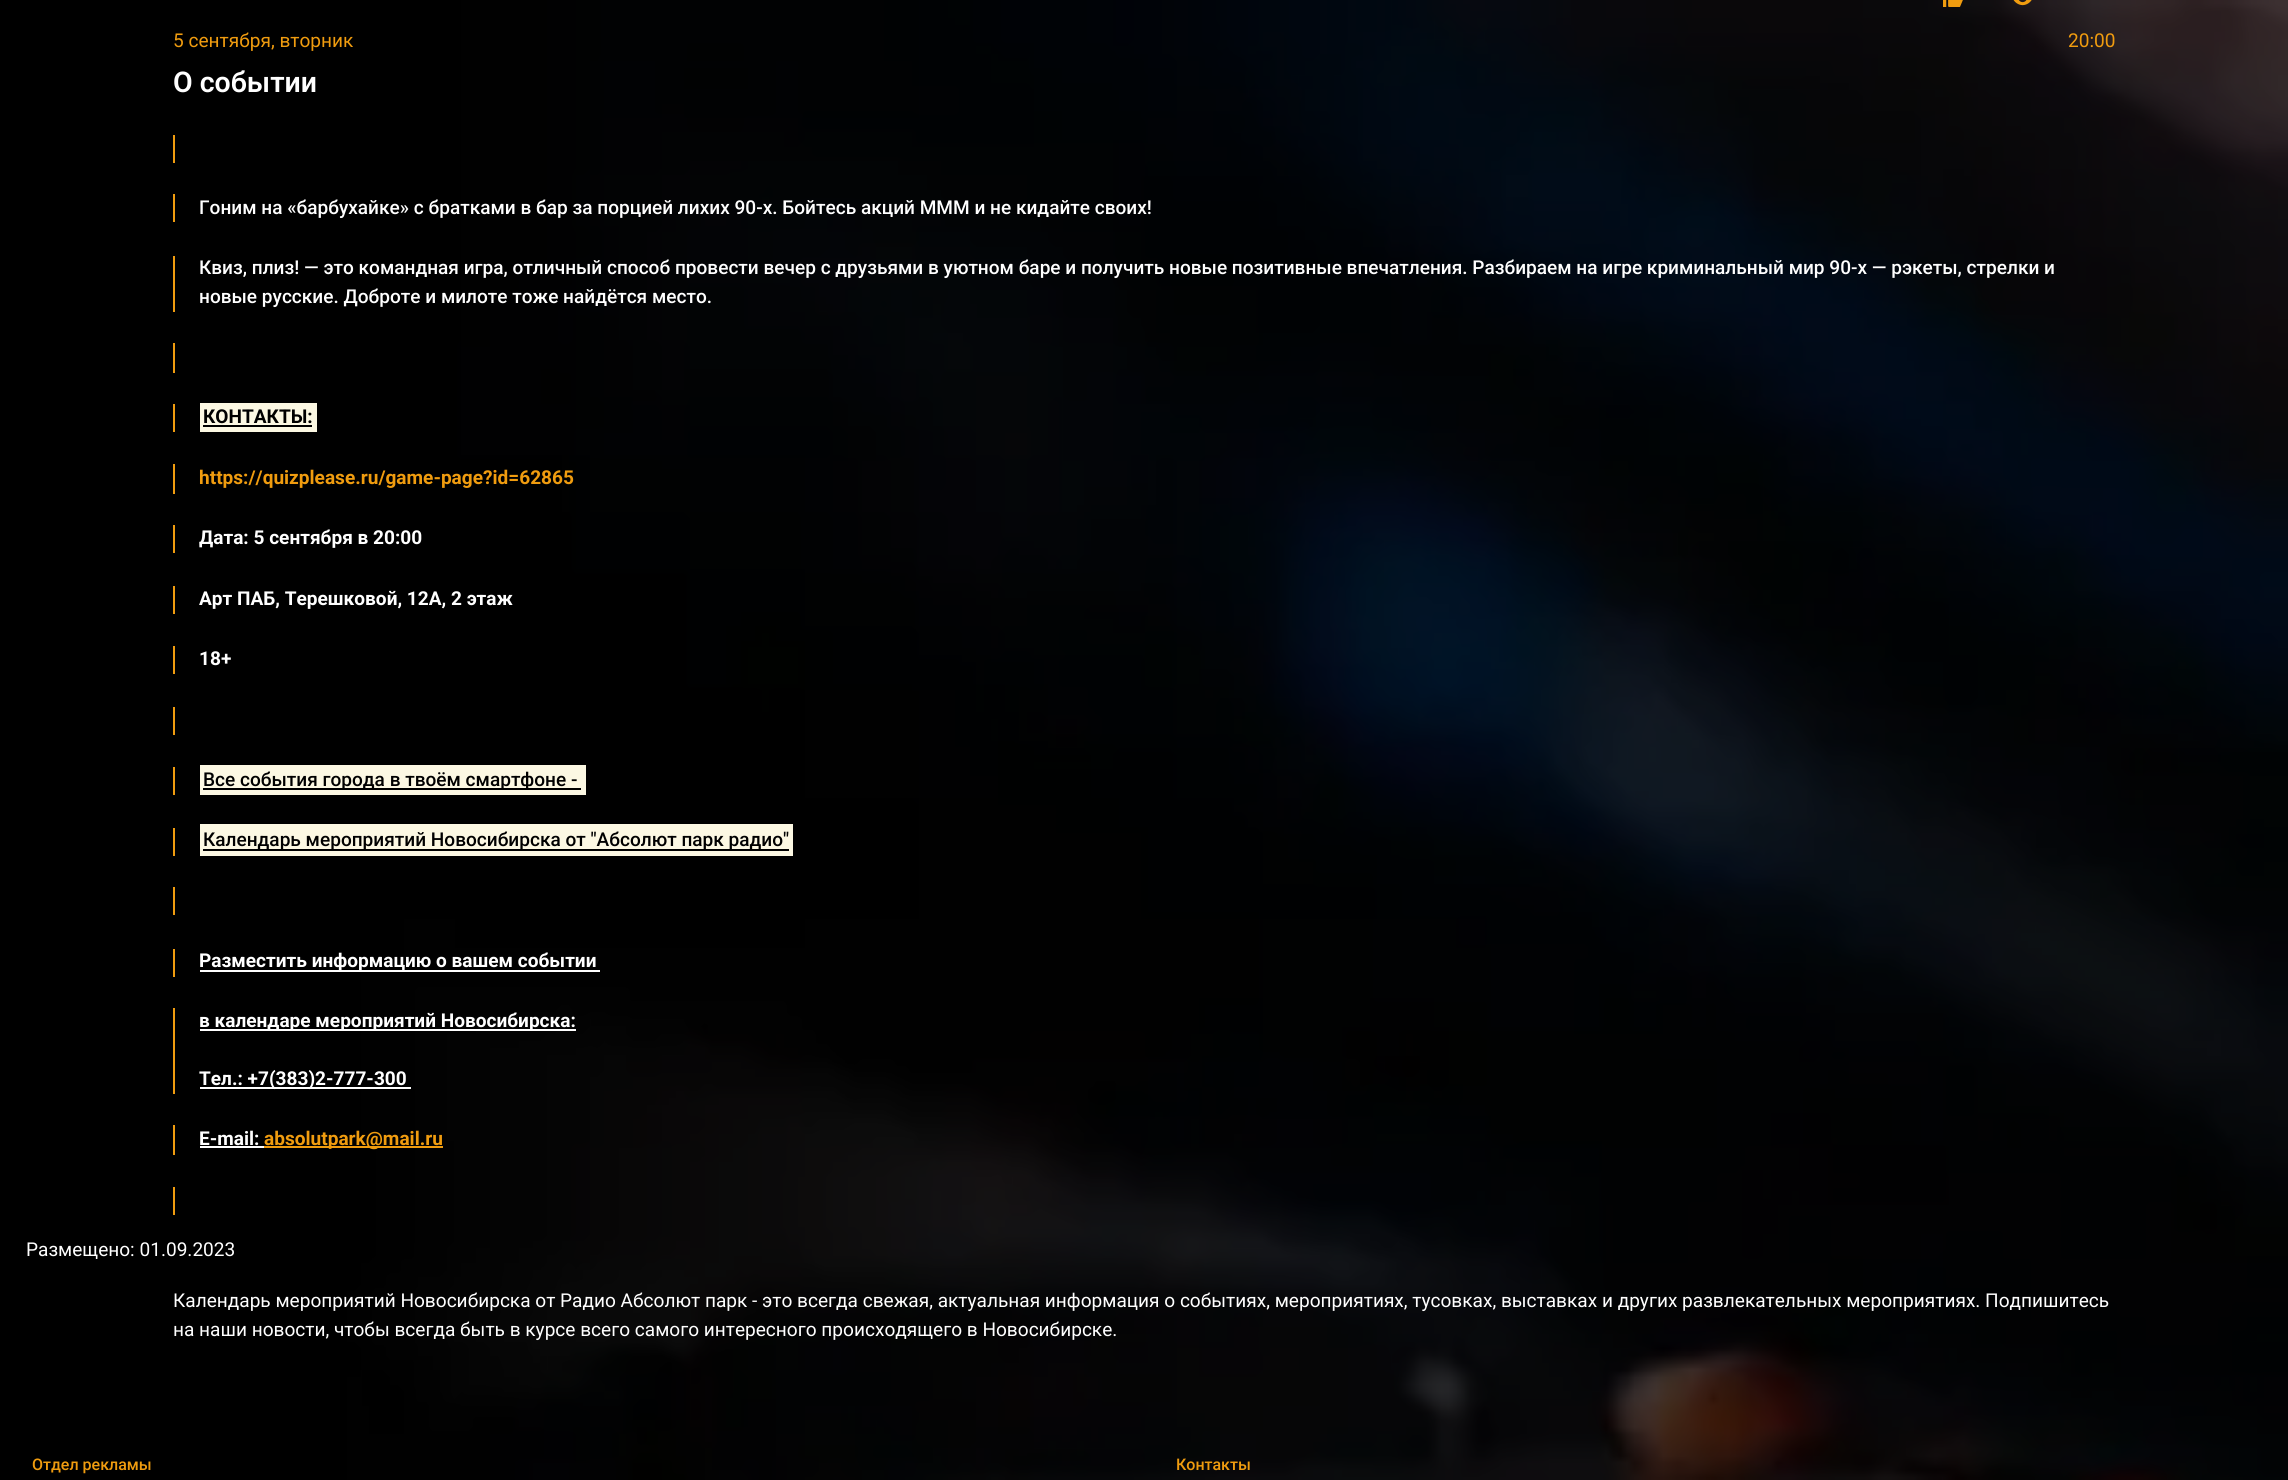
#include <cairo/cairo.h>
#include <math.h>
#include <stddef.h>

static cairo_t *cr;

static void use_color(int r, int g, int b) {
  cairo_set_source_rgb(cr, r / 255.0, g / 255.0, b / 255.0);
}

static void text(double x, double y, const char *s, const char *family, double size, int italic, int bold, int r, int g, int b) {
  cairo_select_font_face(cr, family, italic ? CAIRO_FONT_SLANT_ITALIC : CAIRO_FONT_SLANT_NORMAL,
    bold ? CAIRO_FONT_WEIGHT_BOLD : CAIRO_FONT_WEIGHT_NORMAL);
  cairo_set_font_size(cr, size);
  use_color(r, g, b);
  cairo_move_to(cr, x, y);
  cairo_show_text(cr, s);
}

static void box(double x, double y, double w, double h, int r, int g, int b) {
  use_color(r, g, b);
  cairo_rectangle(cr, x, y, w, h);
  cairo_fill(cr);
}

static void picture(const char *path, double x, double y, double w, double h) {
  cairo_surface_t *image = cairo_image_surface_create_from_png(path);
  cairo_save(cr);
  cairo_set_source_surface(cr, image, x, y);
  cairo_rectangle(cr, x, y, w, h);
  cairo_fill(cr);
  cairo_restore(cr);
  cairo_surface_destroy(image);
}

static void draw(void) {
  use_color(255, 255, 255);
  cairo_paint(cr);
  picture("img_01.png", 0, 0, 2288, 1480);
  picture("img_02.png", 1943, 0, 20, 7);
  picture("img_03.png", 2013, 0, 19, 6);
  box(173, 135, 2, 28, 240, 156, 15);
  box(173, 194, 2, 28, 240, 156, 15);
  box(173, 256, 2, 56, 240, 156, 15);
  box(173, 343, 2, 30, 240, 156, 15);
  box(173, 404, 2, 28, 240, 156, 15);
  box(200, 403, 117, 29, 252, 248, 227);
  box(203, 425, 109, 2, 0, 0, 0);
  box(173, 464, 2, 30, 240, 156, 15);
  box(173, 525, 2, 28, 240, 156, 15);
  box(173, 586, 2, 28, 240, 156, 15);
  box(173, 646, 2, 28, 240, 156, 15);
  box(173, 707, 2, 28, 240, 156, 15);
  box(173, 767, 2, 28, 240, 156, 15);
  box(200, 765, 386, 30, 252, 248, 227);
  box(203, 788, 378, 2, 0, 0, 0);
  box(173, 828, 2, 28, 240, 156, 15);
  box(200, 824, 593, 32, 252, 248, 227);
  box(203, 849, 586, 2, 0, 0, 0);
  box(173, 887, 2, 28, 240, 156, 15);
  box(173, 949, 2, 28, 240, 156, 15);
  box(200, 970, 400, 2, 255, 255, 255);
  box(173, 1008, 2, 86, 240, 156, 15);
  box(200, 1029, 376, 2, 255, 255, 255);
  box(200, 1087, 211, 2, 255, 255, 255);
  box(173, 1125, 2, 30, 240, 156, 15);
  box(200, 1146, 64, 2, 255, 255, 255);
  box(264, 1146, 179, 2, 240, 156, 15);
  box(173, 1187, 2, 28, 240, 156, 15);
  text(173, 47, "5 сентября, вторник", "Roboto", 19.07, 0, 0, 240, 156, 15);
  text(2068, 47, "20:00", "Roboto", 19.07, 0, 0, 240, 156, 15);
  text(173, 92, "О событии", "Roboto SemiBold", 28.5, 0, 0, 255, 255, 255);
  text(199, 214, "Гоним на «барбухайке» с братками в бар за порцией лихих 90-х. Бойтесь акций МММ и не кидайте своих!", "Roboto Medium", 19.07, 0, 0, 255, 255, 255);
  text(199, 274, "Квиз, плиз! — это командная игра, отличный способ провести вечер с друзьями в уютном баре и получить новые позитивные впечатления. Разбираем на игре криминальный мир 90-х — рэкеты, стрелки и", "Roboto Medium", 19.07, 0, 0, 255, 255, 255);
  text(199, 303, "новые русские. Доброте и милоте тоже найдётся место.", "Roboto Medium", 19.07, 0, 0, 255, 255, 255);
  text(203, 423, "КОНТАКТЫ:", "Roboto", 19.07, 0, 1, 0, 0, 0);
  text(199, 484, "https://quizplease.ru/game-page?id=62865", "Roboto", 19.07, 0, 1, 240, 156, 15);
  text(199, 544, "Дата: 5 сентября в 20:00", "Roboto", 19.07, 0, 1, 255, 255, 255);
  text(199, 605, "Арт ПАБ, Терешковой, 12А, 2 этаж", "Roboto", 19.07, 0, 1, 255, 255, 255);
  text(199, 665, "18+", "Roboto", 19.07, 0, 1, 255, 255, 255);
  text(203, 786, "Все события города в твоём смартфоне -", "Roboto Medium", 19.07, 0, 0, 0, 0, 0);
  text(203, 846, "Календарь мероприятий Новосибирска от \"Абсолют парк радио\"", "Roboto Medium", 19.07, 0, 0, 0, 0, 0);
  text(199, 967, "Разместить информацию о вашем событии", "Roboto", 19.07, 0, 1, 255, 255, 255);
  text(199, 1027, "в календаре мероприятий Новосибирска:", "Roboto", 19.07, 0, 1, 255, 255, 255);
  text(199, 1085, "Тел.: +7(383)2-777-300", "Roboto", 19.07, 0, 1, 255, 255, 255);
  text(199, 1145, "E-mail:", "Roboto", 19.07, 0, 1, 255, 255, 255);
  text(264, 1145, "absolutpark@mail.ru", "Roboto", 19.07, 0, 1, 240, 156, 15);
  text(26, 1256, "Размещено: 01.09.2023", "Roboto", 19.07, 0, 0, 255, 255, 255);
  text(173, 1307, "Календарь мероприятий Новосибирска от Радио Абсолют парк - это всегда свежая, актуальная информация о событиях, мероприятиях, тусовках, выставках и других развлекательных мероприятиях. Подпишитесь", "Roboto", 19.07, 0, 0, 255, 255, 255);
  text(173, 1336, "на наши новости, чтобы всегда быть в курсе всего самого интересного происходящего в Новосибирске.", "Roboto", 19.07, 0, 0, 255, 255, 255);
  text(32, 1470, "Отдел рекламы", "Roboto Medium", 16, 0, 0, 240, 156, 15);
  text(1176, 1470, "Контакты", "Roboto Medium", 16, 0, 0, 240, 156, 15);
}

int main(void) {
  cairo_surface_t *surface = cairo_image_surface_create(CAIRO_FORMAT_RGB24, 2288, 1480);
  cr = cairo_create(surface);
  cairo_font_options_t *options = cairo_font_options_create();
  cairo_font_options_set_hint_metrics(options, CAIRO_HINT_METRICS_OFF);
  cairo_font_options_set_hint_style(options, CAIRO_HINT_STYLE_NONE);
  cairo_set_font_options(cr, options);
  cairo_set_miter_limit(cr, 4);
  draw();
  cairo_surface_write_to_png(surface, "out.png");
  cairo_font_options_destroy(options);
  cairo_destroy(cr);
  cairo_surface_destroy(surface);
  return 0;
}
